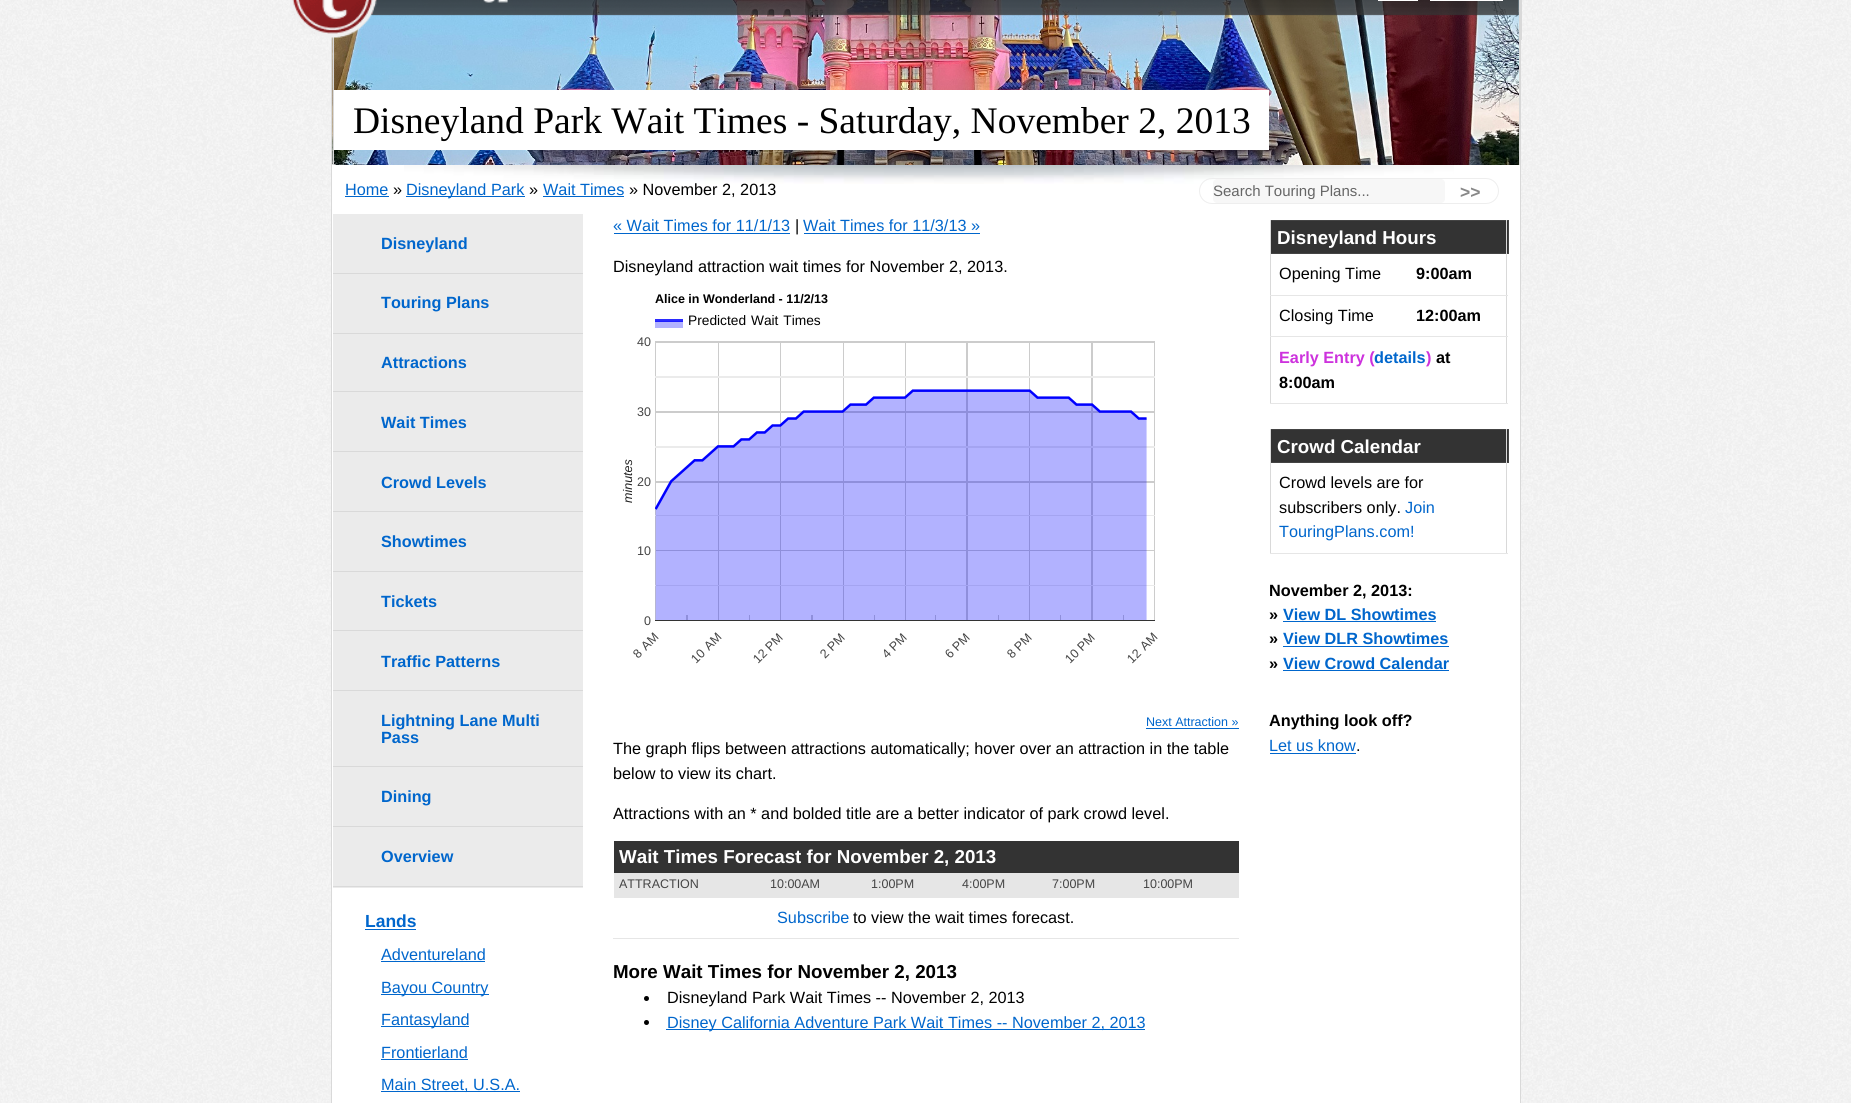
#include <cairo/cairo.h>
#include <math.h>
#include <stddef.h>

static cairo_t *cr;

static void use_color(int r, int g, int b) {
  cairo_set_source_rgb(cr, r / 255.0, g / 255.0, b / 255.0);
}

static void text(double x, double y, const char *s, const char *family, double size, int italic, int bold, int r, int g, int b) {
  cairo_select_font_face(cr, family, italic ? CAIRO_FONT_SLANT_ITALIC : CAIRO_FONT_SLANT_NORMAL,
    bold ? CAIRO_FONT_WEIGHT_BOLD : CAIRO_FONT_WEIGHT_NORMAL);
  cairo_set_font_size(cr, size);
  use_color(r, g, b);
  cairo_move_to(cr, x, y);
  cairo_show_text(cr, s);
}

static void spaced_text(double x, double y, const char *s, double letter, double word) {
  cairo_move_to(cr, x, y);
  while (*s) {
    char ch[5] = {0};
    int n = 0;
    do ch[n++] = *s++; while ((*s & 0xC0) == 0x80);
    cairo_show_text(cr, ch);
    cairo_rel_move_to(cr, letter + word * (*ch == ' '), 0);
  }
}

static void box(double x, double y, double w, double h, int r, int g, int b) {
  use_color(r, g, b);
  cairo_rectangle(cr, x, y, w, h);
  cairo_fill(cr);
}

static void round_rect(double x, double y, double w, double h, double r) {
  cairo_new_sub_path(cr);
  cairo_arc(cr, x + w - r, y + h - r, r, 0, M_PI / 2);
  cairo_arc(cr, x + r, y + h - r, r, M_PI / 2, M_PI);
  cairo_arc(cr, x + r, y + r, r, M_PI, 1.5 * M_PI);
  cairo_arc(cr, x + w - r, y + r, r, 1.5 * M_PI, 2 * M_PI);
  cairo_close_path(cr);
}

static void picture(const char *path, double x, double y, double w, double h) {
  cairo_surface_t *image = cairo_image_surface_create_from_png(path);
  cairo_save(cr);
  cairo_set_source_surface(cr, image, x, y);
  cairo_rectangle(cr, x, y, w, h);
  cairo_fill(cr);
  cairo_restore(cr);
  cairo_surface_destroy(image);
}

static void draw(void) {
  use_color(255, 255, 255);
  cairo_paint(cr);
  picture("img_01.png", 0, 0, 1851, 1103);
  picture("img_02.png", 332, 0, 1187, 165);
  box(1519, 40, 2, 125, 217, 217, 217);
  box(331, 0, 1, 1103, 217, 217, 217);
  box(1519, 0, 3, 40, 217, 217, 217);
  box(333, 37, 1, 128, 217, 217, 217);
  picture("img_03.png", 290, 0, 1229, 38);
  picture("img_04.png", 483, 0, 25, 3);
  box(1378, 0, 40, 1, 255, 255, 255);
  box(1430, 0, 73, 1, 255, 255, 255);
  box(334, 90, 935, 60, 255, 255, 255);
  box(332, 165, 1188, 938, 255, 255, 255);
  picture("img_05.png", 404, 165, 1050, 19);
  box(1520, 165, 1, 938, 217, 217, 217);
  box(345, 196, 44, 1, 0, 102, 204);
  box(406, 196, 119, 1, 0, 102, 204);
  box(543, 196, 81, 1, 0, 102, 204);
  round_rect(1199.5, 178.5, 299, 25, 12.5);
  use_color(238, 238, 238);
  cairo_set_line_width(cr, 1);
  cairo_stroke(cr);
  use_color(247, 247, 247);
  round_rect(1213, 179, 232, 24, 4);
  cairo_fill(cr);
  box(333, 214, 250, 59, 235, 235, 235);
  box(333, 273, 250, 1, 217, 217, 217);
  box(333, 274, 250, 59, 235, 235, 235);
  box(333, 333, 250, 1, 217, 217, 217);
  box(333, 334, 250, 296, 235, 235, 235);
  box(333, 391, 250, 1, 217, 217, 217);
  box(333, 451, 250, 1, 217, 217, 217);
  box(333, 511, 250, 1, 217, 217, 217);
  box(333, 571, 250, 1, 217, 217, 217);
  box(333, 630, 250, 1, 217, 217, 217);
  box(333, 631, 250, 59, 235, 235, 235);
  box(333, 690, 250, 1, 217, 217, 217);
  box(333, 691, 250, 197, 235, 235, 235);
  box(333, 766, 250, 1, 217, 217, 217);
  box(333, 826, 250, 1, 217, 217, 217);
  box(333, 886, 250, 1, 217, 217, 217);
  box(365, 929, 51, 1, 0, 102, 204);
  box(381, 961, 104, 1, 0, 102, 204);
  box(381, 994, 108, 1, 0, 102, 204);
  box(381, 1026, 88, 1, 0, 102, 204);
  box(381, 1059, 87, 1, 0, 102, 204);
  box(381, 1091, 139, 1, 0, 102, 204);
  box(614, 233, 176, 1, 0, 102, 204);
  box(804, 233, 176, 1, 0, 102, 204);
  picture("img_06.png", 655, 319, 500, 302);
  box(1146, 728, 93, 1, 0, 102, 204);
  box(614, 841, 625, 32, 51, 51, 51);
  box(614, 873, 625, 25, 230, 230, 230);
  box(613, 938, 626, 1, 230, 230, 230);
  use_color(0, 0, 0);
  cairo_arc(cr, 646.5, 998.5, 2.5, 0, 2 * M_PI);
  cairo_fill(cr);
  cairo_arc(cr, 646.5, 1022.5, 2.5, 0, 2 * M_PI);
  cairo_fill(cr);
  box(666, 1029, 479, 1, 0, 102, 204);
  use_color(51, 51, 51);
  cairo_rectangle(cr, 1270.5, 220.5, 238, 33);
  cairo_fill_preserve(cr);
  use_color(68, 68, 68);
  cairo_stroke(cr);
  box(1506, 220, 1, 184, 217, 217, 217);
  box(1270, 220, 1, 184, 217, 217, 217);
  box(1270, 295, 238, 1, 230, 230, 230);
  box(1270, 336, 238, 1, 230, 230, 230);
  box(1270, 403, 238, 1, 230, 230, 230);
  use_color(51, 51, 51);
  cairo_rectangle(cr, 1270.5, 429.5, 238, 33);
  cairo_fill_preserve(cr);
  use_color(68, 68, 68);
  cairo_stroke(cr);
  box(1506, 429, 1, 125, 217, 217, 217);
  box(1270, 429, 1, 125, 217, 217, 217);
  box(1270, 553, 238, 1, 230, 230, 230);
  box(1283, 621, 153, 1, 0, 102, 204);
  box(1283, 646, 166, 1, 0, 102, 204);
  box(1283, 670, 166, 1, 0, 102, 204);
  box(1270, 753, 86, 1, 0, 102, 204);
  text(353, 133, "Disneyland Park Wait Times - Saturday, November 2, 2013", "Liberation Serif", 37.5, 0, 0, 0, 0, 0);
  text(345, 195, "Home", "Liberation Sans", 16.25, 0, 0, 0, 102, 204);
  text(393, 195, "»", "Liberation Sans", 16.25, 0, 0, 0, 0, 0);
  text(406, 195, "Disneyland Park", "Liberation Sans", 16.25, 0, 0, 0, 102, 204);
  text(529, 195, "»", "Liberation Sans", 16.25, 0, 0, 0, 0, 0);
  text(543, 195, "Wait Times", "Liberation Sans", 16.25, 0, 0, 0, 102, 204);
  text(629, 195, "» November 2, 2013", "Liberation Sans", 16.25, 0, 0, 0, 0, 0);
  text(1213, 196, "Search Touring Plans...", "Liberation Sans", 15, 0, 0, 102, 102, 102);
  text(1460, 198, ">>", "Liberation Sans", 17.5, 0, 1, 136, 136, 136);
  text(381, 249, "Disneyland", "Liberation Sans", 16.25, 0, 1, 0, 102, 204);
  text(381, 308, "Touring Plans", "Liberation Sans", 16.25, 0, 1, 0, 102, 204);
  text(381, 368, "Attractions", "Liberation Sans", 16.25, 0, 1, 0, 102, 204);
  text(381, 428, "Wait Times", "Liberation Sans", 16.25, 0, 1, 0, 102, 204);
  text(381, 488, "Crowd Levels", "Liberation Sans", 16.25, 0, 1, 0, 102, 204);
  text(381, 547, "Showtimes", "Liberation Sans", 16.25, 0, 1, 0, 102, 204);
  text(381, 607, "Tickets", "Liberation Sans", 16.25, 0, 1, 0, 102, 204);
  text(381, 667, "Traffic Patterns", "Liberation Sans", 16.25, 0, 1, 0, 102, 204);
  text(381, 726, "Lightning Lane Multi", "Liberation Sans", 16.25, 0, 1, 0, 102, 204);
  text(381, 743, "Pass", "Liberation Sans", 16.25, 0, 1, 0, 102, 204);
  text(381, 802, "Dining", "Liberation Sans", 16.25, 0, 1, 0, 102, 204);
  text(381, 862, "Overview", "Liberation Sans", 16.25, 0, 1, 0, 102, 204);
  text(365, 927, "Lands", "Liberation Sans", 17.5, 0, 1, 0, 102, 204);
  text(381, 960, "Adventureland", "Liberation Sans", 16.25, 0, 0, 0, 102, 204);
  text(381, 993, "Bayou Country", "Liberation Sans", 16.25, 0, 0, 0, 102, 204);
  text(381, 1025, "Fantasyland", "Liberation Sans", 16.25, 0, 0, 0, 102, 204);
  text(381, 1058, "Frontierland", "Liberation Sans", 16.25, 0, 0, 0, 102, 204);
  text(381, 1090, "Main Street, U.S.A.", "Liberation Sans", 16.25, 0, 0, 0, 102, 204);
  text(613, 231, "« Wait Times for 11/1/13", "Liberation Sans", 16.25, 0, 0, 0, 102, 204);
  text(795, 231, "|", "Liberation Sans", 16.25, 0, 0, 0, 0, 0);
  text(803, 231, "Wait Times for 11/3/13 »", "Liberation Sans", 16.25, 0, 0, 0, 102, 204);
  text(613, 272, "Disneyland attraction wait times for November 2, 2013.", "Liberation Sans", 16.25, 0, 0, 0, 0, 0);
  text(655, 303, "Alice in Wonderland - 11/2/13", "Liberation Sans", 12.5, 0, 1, 0, 0, 0);
  cairo_select_font_face(cr, "Liberation Sans", CAIRO_FONT_SLANT_NORMAL, CAIRO_FONT_WEIGHT_NORMAL);
  cairo_set_font_size(cr, 13.75);
  spaced_text(688, 325, "Predicted Wait Times", 0, 1);
  text(637, 346, "40", "Liberation Sans", 12.5, 0, 0, 68, 68, 68);
  text(637, 416, "30", "Liberation Sans", 12.5, 0, 0, 68, 68, 68);
  cairo_save(cr);
  cairo_translate(cr, 632, 503);
  cairo_rotate(cr, -90 * M_PI / 180);
  text(0, 0, "minutes", "Liberation Sans", 12.5, 1, 0, 34, 34, 34);
  cairo_restore(cr);
  text(637, 486, "20", "Liberation Sans", 12.5, 0, 0, 68, 68, 68);
  text(637, 555, "10", "Liberation Sans", 12.5, 0, 0, 68, 68, 68);
  text(644, 625, "0", "Liberation Sans", 12.5, 0, 0, 68, 68, 68);
  cairo_save(cr);
  cairo_translate(cr, 638, 659);
  cairo_rotate(cr, -45 * M_PI / 180);
  spaced_text(0, 0, "8 AM", 0, 1);
  cairo_restore(cr);
  cairo_save(cr);
  cairo_translate(cr, 696, 664);
  cairo_rotate(cr, -45 * M_PI / 180);
  spaced_text(0, 0, "10 AM", 0, 1);
  cairo_restore(cr);
  cairo_save(cr);
  cairo_translate(cr, 758, 664);
  cairo_rotate(cr, -45 * M_PI / 180);
  text(0, 0, "12 PM", "Liberation Sans", 12.5, 0, 0, 68, 68, 68);
  cairo_restore(cr);
  cairo_save(cr);
  cairo_translate(cr, 825, 659);
  cairo_rotate(cr, -45 * M_PI / 180);
  text(0, 0, "2 PM", "Liberation Sans", 12.5, 0, 0, 68, 68, 68);
  cairo_restore(cr);
  cairo_save(cr);
  cairo_translate(cr, 887, 659);
  cairo_rotate(cr, -45 * M_PI / 180);
  text(0, 0, "4 PM", "Liberation Sans", 12.5, 0, 0, 68, 68, 68);
  cairo_restore(cr);
  cairo_save(cr);
  cairo_translate(cr, 950, 659);
  cairo_rotate(cr, -45 * M_PI / 180);
  text(0, 0, "6 PM", "Liberation Sans", 12.5, 0, 0, 68, 68, 68);
  cairo_restore(cr);
  cairo_save(cr);
  cairo_translate(cr, 1012, 659);
  cairo_rotate(cr, -45 * M_PI / 180);
  text(0, 0, "8 PM", "Liberation Sans", 12.5, 0, 0, 68, 68, 68);
  cairo_restore(cr);
  cairo_save(cr);
  cairo_translate(cr, 1070, 664);
  cairo_rotate(cr, -45 * M_PI / 180);
  text(0, 0, "10 PM", "Liberation Sans", 12.5, 0, 0, 68, 68, 68);
  cairo_restore(cr);
  cairo_select_font_face(cr, "Liberation Sans", CAIRO_FONT_SLANT_NORMAL, CAIRO_FONT_WEIGHT_NORMAL);
  cairo_set_font_size(cr, 12.5);
  use_color(68, 68, 68);
  cairo_save(cr);
  cairo_translate(cr, 1132, 664);
  cairo_rotate(cr, -45 * M_PI / 180);
  spaced_text(0, 0, "12 AM", 0, 1);
  cairo_restore(cr);
  text(1146, 726, "Next Attraction »", "Liberation Sans", 12.5, 0, 0, 0, 102, 204);
  text(613, 754, "The graph flips between attractions automatically; hover over an attraction in the table", "Liberation Sans", 16.25, 0, 0, 0, 0, 0);
  text(613, 779, "below to view its chart.", "Liberation Sans", 16.25, 0, 0, 0, 0, 0);
  text(613, 819, "Attractions with an * and bolded title are a better indicator of park crowd level.", "Liberation Sans", 16.25, 0, 0, 0, 0, 0);
  text(619, 863, "Wait Times Forecast for November 2, 2013", "Liberation Sans", 18.75, 0, 1, 255, 255, 255);
  text(619, 888, "ATTRACTION", "Liberation Sans", 12.5, 0, 0, 68, 68, 68);
  text(770, 888, "10:00AM", "Liberation Sans", 12.5, 0, 0, 68, 68, 68);
  text(871, 888, "1:00PM", "Liberation Sans", 12.5, 0, 0, 68, 68, 68);
  text(962, 888, "4:00PM", "Liberation Sans", 12.5, 0, 0, 68, 68, 68);
  text(1052, 888, "7:00PM", "Liberation Sans", 12.5, 0, 0, 68, 68, 68);
  text(1143, 888, "10:00PM", "Liberation Sans", 12.5, 0, 0, 68, 68, 68);
  text(777, 923, "Subscribe", "Liberation Sans", 16.25, 0, 0, 0, 102, 204);
  text(853, 923, "to view the wait times forecast.", "Liberation Sans", 16.25, 0, 0, 0, 0, 0);
  text(613, 978, "More Wait Times for November 2, 2013", "Liberation Sans", 18.75, 0, 1, 0, 0, 0);
  text(667, 1003, "Disneyland Park Wait Times -- November 2, 2013", "Liberation Sans", 16.25, 0, 0, 0, 0, 0);
  text(667, 1028, "Disney California Adventure Park Wait Times -- November 2, 2013", "Liberation Sans", 16.25, 0, 0, 0, 102, 204);
  text(1277, 244, "Disneyland Hours", "Liberation Sans", 18.75, 0, 1, 255, 255, 255);
  text(1279, 279, "Opening Time", "Liberation Sans", 16.25, 0, 0, 0, 0, 0);
  text(1416, 279, "9:00am", "Liberation Sans", 16.25, 0, 1, 0, 0, 0);
  text(1279, 321, "Closing Time", "Liberation Sans", 16.25, 0, 0, 0, 0, 0);
  text(1416, 321, "12:00am", "Liberation Sans", 16.25, 0, 1, 0, 0, 0);
  text(1279, 363, "Early Entry (", "Liberation Sans", 16.25, 0, 1, 205, 50, 221);
  text(1374, 363, "details", "Liberation Sans", 16.25, 0, 1, 0, 102, 204);
  text(1426, 363, ")", "Liberation Sans", 16.25, 0, 1, 205, 50, 221);
  text(1436, 363, "at", "Liberation Sans", 16.25, 0, 1, 0, 0, 0);
  text(1279, 388, "8:00am", "Liberation Sans", 16.25, 0, 1, 0, 0, 0);
  text(1277, 453, "Crowd Calendar", "Liberation Sans", 18.75, 0, 1, 255, 255, 255);
  text(1279, 488, "Crowd levels are for", "Liberation Sans", 16.25, 0, 0, 0, 0, 0);
  text(1279, 513, "subscribers only.", "Liberation Sans", 16.25, 0, 0, 0, 0, 0);
  text(1405, 513, "Join", "Liberation Sans", 16.25, 0, 0, 0, 102, 204);
  text(1279, 537, "TouringPlans.com!", "Liberation Sans", 16.25, 0, 0, 0, 102, 204);
  text(1269, 596, "November 2, 2013:", "Liberation Sans", 16.25, 0, 1, 0, 0, 0);
  text(1269, 620, "»", "Liberation Sans", 16.25, 0, 1, 0, 0, 0);
  text(1283, 620, "View DL Showtimes", "Liberation Sans", 16.25, 0, 1, 0, 102, 204);
  text(1269, 644, "»", "Liberation Sans", 16.25, 0, 1, 0, 0, 0);
  text(1283, 644, "View DLR Showtimes", "Liberation Sans", 16.25, 0, 1, 0, 102, 204);
  text(1269, 669, "»", "Liberation Sans", 16.25, 0, 1, 0, 0, 0);
  text(1283, 669, "View Crowd Calendar", "Liberation Sans", 16.25, 0, 1, 0, 102, 204);
  text(1269, 726, "Anything look off?", "Liberation Sans", 16.25, 0, 1, 0, 0, 0);
  text(1269, 751, "Let us know", "Liberation Sans", 16.25, 0, 0, 0, 102, 204);
  text(1356, 751, ".", "Liberation Sans", 16.25, 0, 0, 0, 0, 0);
}

int main(void) {
  cairo_surface_t *surface = cairo_image_surface_create(CAIRO_FORMAT_RGB24, 1851, 1103);
  cr = cairo_create(surface);
  cairo_font_options_t *options = cairo_font_options_create();
  cairo_font_options_set_hint_metrics(options, CAIRO_HINT_METRICS_OFF);
  cairo_font_options_set_hint_style(options, CAIRO_HINT_STYLE_NONE);
  cairo_set_font_options(cr, options);
  cairo_set_miter_limit(cr, 4);
  draw();
  cairo_surface_write_to_png(surface, "out.png");
  cairo_font_options_destroy(options);
  cairo_destroy(cr);
  cairo_surface_destroy(surface);
  return 0;
}
